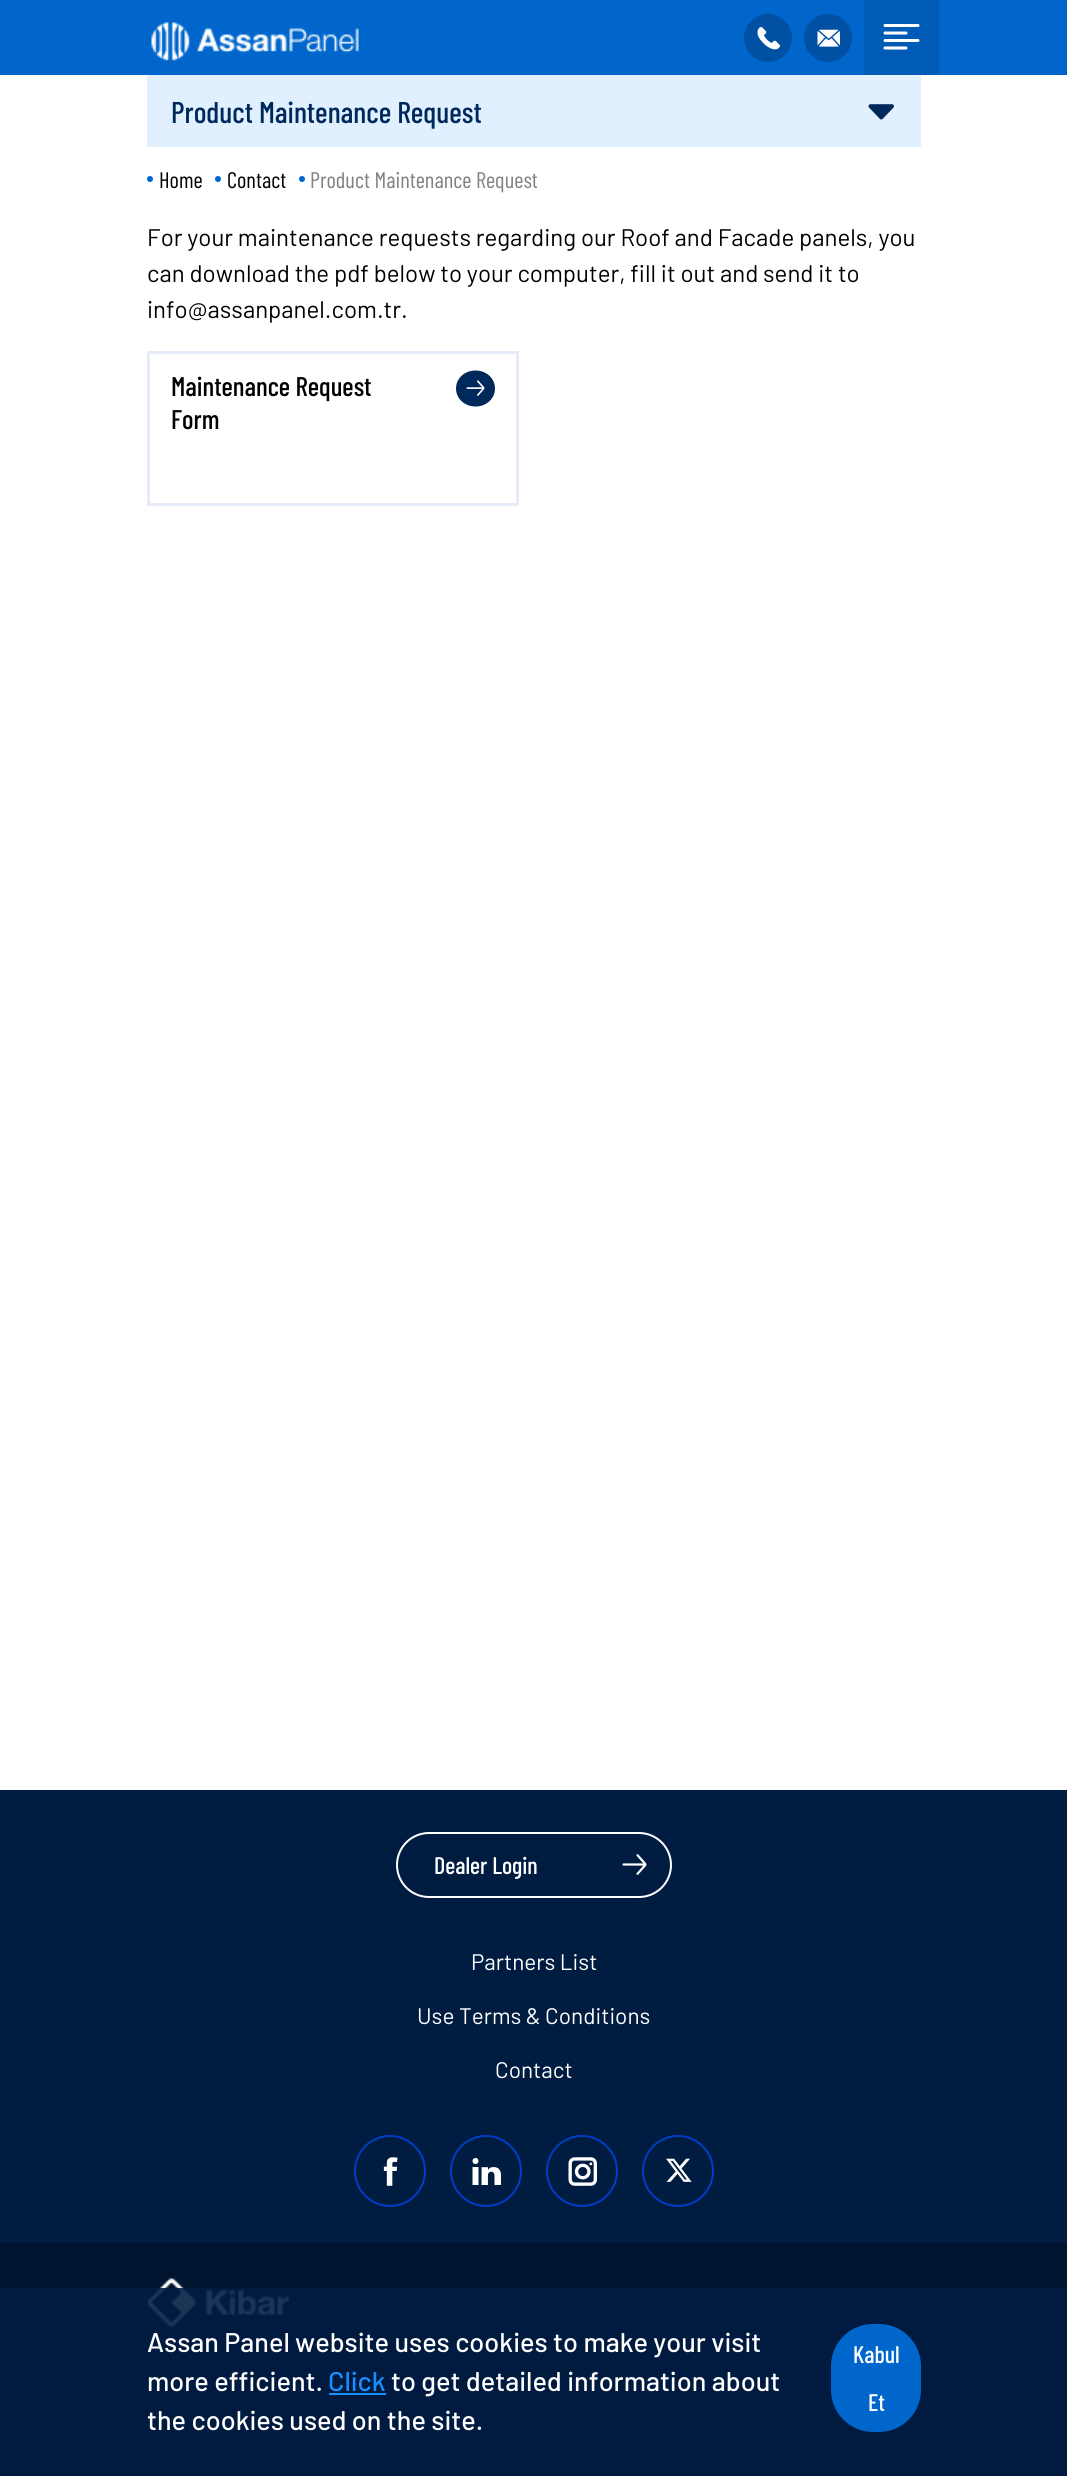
#include <cairo/cairo.h>
#include <math.h>
#include <stddef.h>

static cairo_t *cr;

static void use_color(int r, int g, int b) {
  cairo_set_source_rgb(cr, r / 255.0, g / 255.0, b / 255.0);
}

static void text(double x, double y, const char *s, const char *family, double size, int italic, int bold, int r, int g, int b) {
  cairo_select_font_face(cr, family, italic ? CAIRO_FONT_SLANT_ITALIC : CAIRO_FONT_SLANT_NORMAL,
    bold ? CAIRO_FONT_WEIGHT_BOLD : CAIRO_FONT_WEIGHT_NORMAL);
  cairo_set_font_size(cr, size);
  use_color(r, g, b);
  cairo_move_to(cr, x, y);
  cairo_show_text(cr, s);
}

static void box(double x, double y, double w, double h, int r, int g, int b) {
  use_color(r, g, b);
  cairo_rectangle(cr, x, y, w, h);
  cairo_fill(cr);
}

static void round_rect(double x, double y, double w, double h, double r) {
  cairo_new_sub_path(cr);
  cairo_arc(cr, x + w - r, y + h - r, r, 0, M_PI / 2);
  cairo_arc(cr, x + r, y + h - r, r, M_PI / 2, M_PI);
  cairo_arc(cr, x + r, y + r, r, M_PI, 1.5 * M_PI);
  cairo_arc(cr, x + w - r, y + r, r, 1.5 * M_PI, 2 * M_PI);
  cairo_close_path(cr);
}

static void picture(const char *path, double x, double y, double w, double h) {
  cairo_surface_t *image = cairo_image_surface_create_from_png(path);
  cairo_save(cr);
  cairo_set_source_surface(cr, image, x, y);
  cairo_rectangle(cr, x, y, w, h);
  cairo_fill(cr);
  cairo_restore(cr);
  cairo_surface_destroy(image);
}

static void draw(void) {
  use_color(255, 255, 255);
  cairo_paint(cr);
  box(0, 0, 1067, 75, 0, 102, 204);
  picture("img_01.png", 151, 22, 208, 39);
  use_color(0, 81, 163);
  cairo_arc(cr, 768, 38, 24, 0, 2 * M_PI);
  cairo_fill(cr);
  picture("img_02.png", 757, 27, 23, 23);
  cairo_arc(cr, 828, 38, 24, 0, 2 * M_PI);
  cairo_fill(cr);
  picture("img_03.png", 817, 29, 23, 18);
  box(864, 0, 75, 75, 0, 91, 183);
  picture("img_04.png", 883, 24, 37, 26);
  box(147, 75, 774, 72, 224, 240, 255);
  picture("img_05.png", 868, 104, 26, 16);
  use_color(0, 102, 204);
  cairo_arc(cr, 150, 179, 3, 0, 2 * M_PI);
  cairo_fill(cr);
  cairo_arc(cr, 218, 179, 3, 0, 2 * M_PI);
  cairo_fill(cr);
  cairo_arc(cr, 302, 179, 3, 0, 2 * M_PI);
  cairo_fill(cr);
  cairo_rectangle(cr, 148.5, 352.5, 369, 152);
  use_color(229, 235, 249);
  cairo_set_line_width(cr, 3);
  cairo_stroke(cr);
  use_color(0, 41, 91);
  cairo_new_path(cr);
  cairo_move_to(cr, 475.5, 370.5);
  cairo_curve_to(cr, 486.5, 370.5, 495, 378.5, 495, 388.5);
  cairo_curve_to(cr, 495, 398.5, 486.5, 406.5, 475.5, 406.5);
  cairo_curve_to(cr, 464.5, 406.5, 456, 398.5, 456, 388.5);
  cairo_curve_to(cr, 456, 378.5, 464.5, 370.5, 475.5, 370.5);
  cairo_close_path(cr);
  cairo_fill(cr);
  picture("img_06.png", 466, 380, 19, 16);
  box(0, 1790, 1067, 453, 0, 29, 65);
  round_rect(397, 1833, 274, 64, 32);
  use_color(255, 255, 255);
  cairo_set_line_width(cr, 2);
  cairo_stroke(cr);
  picture("img_07.png", 622, 1854, 25, 21);
  cairo_arc(cr, 390, 2171, 35, 0, 2 * M_PI);
  use_color(0, 61, 197);
  cairo_stroke(cr);
  picture("img_08.png", 383, 2157, 15, 29);
  cairo_arc(cr, 486, 2171, 35, 0, 2 * M_PI);
  cairo_stroke(cr);
  picture("img_09.png", 472, 2158, 29, 27);
  cairo_arc(cr, 582, 2171, 35, 0, 2 * M_PI);
  cairo_stroke(cr);
  picture("img_10.png", 568, 2157, 29, 29);
  cairo_arc(cr, 678, 2171, 35, 0, 2 * M_PI);
  cairo_stroke(cr);
  picture("img_11.png", 666, 2158, 26, 24);
  box(0, 2243, 1067, 233, 0, 21, 47);
  picture("img_12.png", 147, 2278, 143, 49);
  cairo_set_source_rgba(cr, 0, 0.114, 0.255, 0.89);
  cairo_rectangle(cr, 0, 2288, 1067, 188);
  cairo_fill(cr);
  box(329, 2393, 57, 2, 26, 141, 255);
  use_color(0, 102, 204);
  round_rect(831, 2324, 90, 108, 42);
  cairo_fill(cr);
  text(171, 123, "Product Maintenance Request", "Barlow Condensed Medium", 30, 0, 0, 0, 41, 91);
  text(159, 188, "Home", "Barlow Condensed", 22.5, 0, 0, 0, 0, 0);
  text(227, 188, "Contact", "Barlow Condensed", 22.5, 0, 0, 0, 0, 0);
  text(310, 188, "Product Maintenance Request", "Barlow Condensed", 22.5, 0, 0, 128, 128, 128);
  text(147, 246, "For your maintenance requests regarding our Roof and Facade panels, you", "Barlow", 24, 0, 0, 0, 0, 0);
  text(147, 282, "can download the pdf below to your computer, fill it out and send it to", "Barlow", 24, 0, 0, 0, 0, 0);
  text(147, 318, "info@assanpanel.com.tr.", "Barlow", 24, 0, 0, 0, 0, 0);
  text(171, 396, "Maintenance Request", "Barlow Condensed Medium", 27, 0, 0, 0, 0, 0);
  text(171, 429, "Form", "Barlow Condensed Medium", 27, 0, 0, 0, 0, 0);
  text(434, 1874, "Dealer Login", "Barlow Condensed Medium", 24, 0, 0, 255, 255, 255);
  text(471, 1970, "Partners List", "Barlow", 22.5, 0, 0, 255, 255, 255);
  text(417, 2024, "Use Terms & Conditions", "Barlow", 22.5, 0, 0, 255, 255, 255);
  text(495, 2078, "Contact", "Barlow", 22.5, 0, 0, 255, 255, 255);
  text(147, 2352, "Assan Panel website uses cookies to make your visit", "Barlow Medium", 27, 0, 0, 255, 255, 255);
  text(147, 2391, "more efficient.", "Barlow Medium", 27, 0, 0, 255, 255, 255);
  text(328, 2391, "Click", "Barlow Medium", 27, 0, 0, 26, 141, 255);
  text(391, 2391, "to get detailed information about", "Barlow Medium", 27, 0, 0, 255, 255, 255);
  text(147, 2430, "the cookies used on the site.", "Barlow Medium", 27, 0, 0, 255, 255, 255);
  text(853, 2363, "Kabul", "Barlow Condensed Medium", 24, 0, 0, 255, 255, 255);
  text(868, 2411, "Et", "Barlow Condensed Medium", 24, 0, 0, 255, 255, 255);
}

int main(void) {
  cairo_surface_t *surface = cairo_image_surface_create(CAIRO_FORMAT_RGB24, 1067, 2476);
  cr = cairo_create(surface);
  cairo_font_options_t *options = cairo_font_options_create();
  cairo_font_options_set_hint_metrics(options, CAIRO_HINT_METRICS_OFF);
  cairo_font_options_set_hint_style(options, CAIRO_HINT_STYLE_NONE);
  cairo_set_font_options(cr, options);
  cairo_set_miter_limit(cr, 4);
  draw();
  cairo_surface_write_to_png(surface, "out.png");
  cairo_font_options_destroy(options);
  cairo_destroy(cr);
  cairo_surface_destroy(surface);
  return 0;
}
